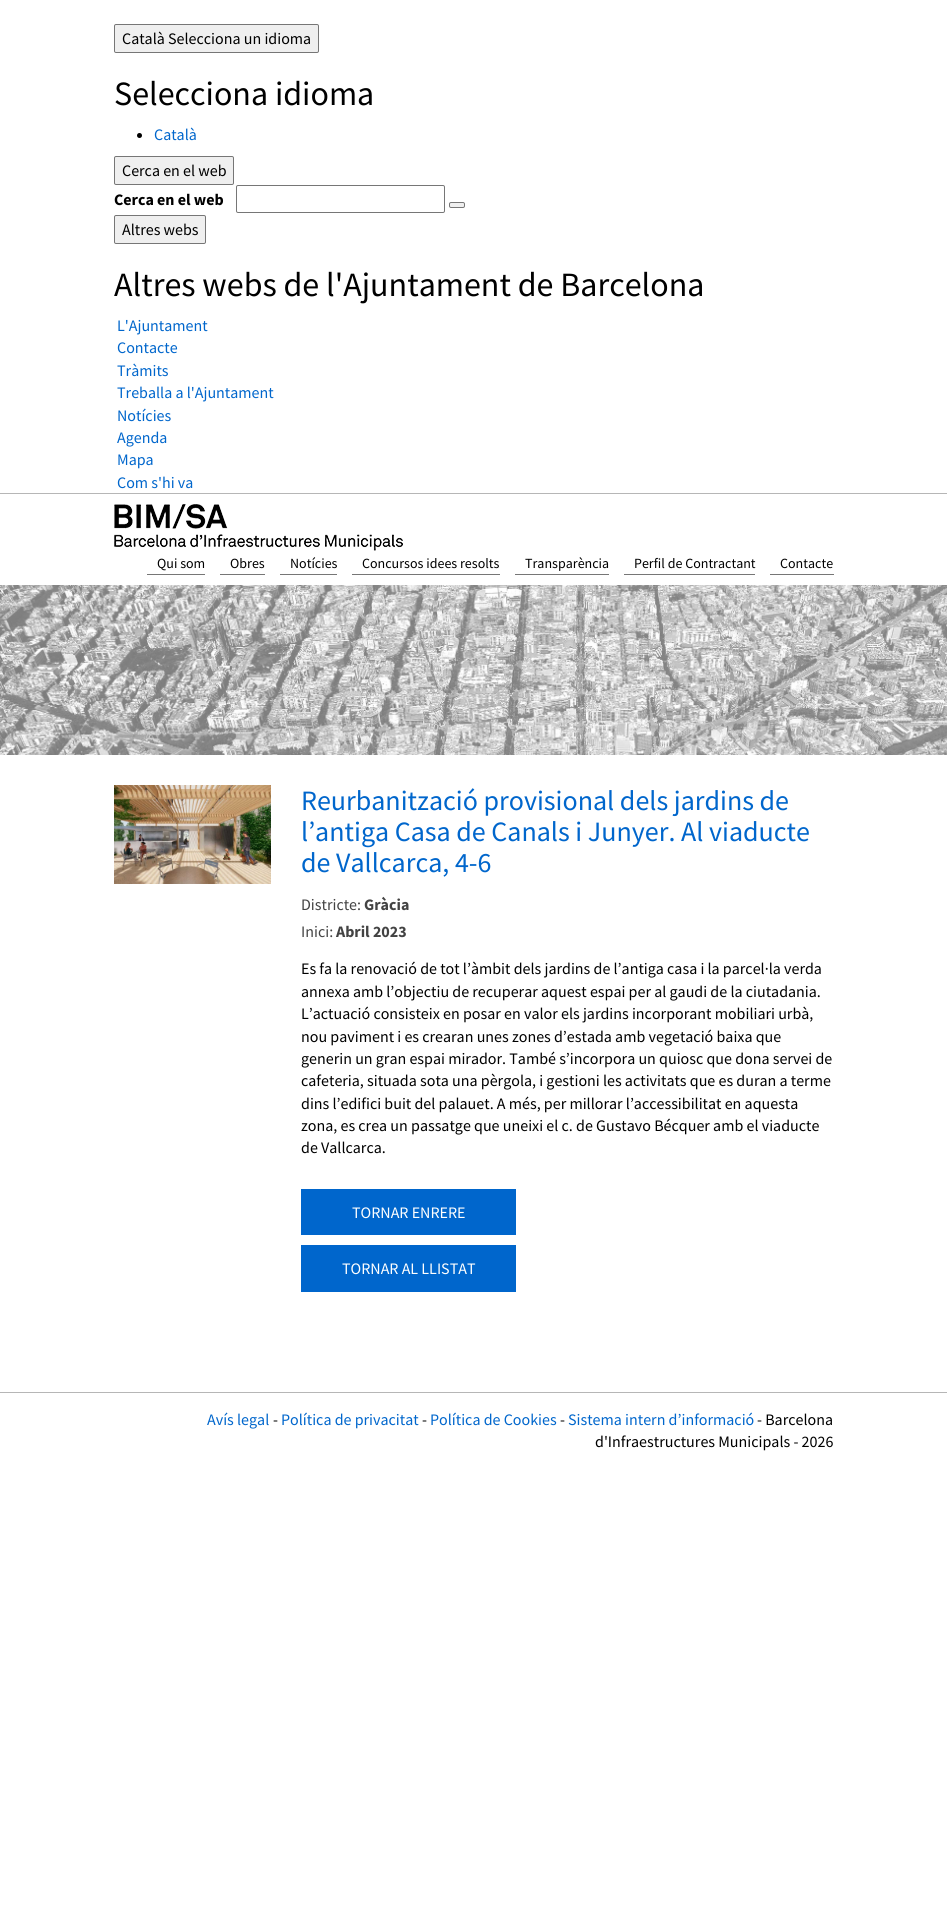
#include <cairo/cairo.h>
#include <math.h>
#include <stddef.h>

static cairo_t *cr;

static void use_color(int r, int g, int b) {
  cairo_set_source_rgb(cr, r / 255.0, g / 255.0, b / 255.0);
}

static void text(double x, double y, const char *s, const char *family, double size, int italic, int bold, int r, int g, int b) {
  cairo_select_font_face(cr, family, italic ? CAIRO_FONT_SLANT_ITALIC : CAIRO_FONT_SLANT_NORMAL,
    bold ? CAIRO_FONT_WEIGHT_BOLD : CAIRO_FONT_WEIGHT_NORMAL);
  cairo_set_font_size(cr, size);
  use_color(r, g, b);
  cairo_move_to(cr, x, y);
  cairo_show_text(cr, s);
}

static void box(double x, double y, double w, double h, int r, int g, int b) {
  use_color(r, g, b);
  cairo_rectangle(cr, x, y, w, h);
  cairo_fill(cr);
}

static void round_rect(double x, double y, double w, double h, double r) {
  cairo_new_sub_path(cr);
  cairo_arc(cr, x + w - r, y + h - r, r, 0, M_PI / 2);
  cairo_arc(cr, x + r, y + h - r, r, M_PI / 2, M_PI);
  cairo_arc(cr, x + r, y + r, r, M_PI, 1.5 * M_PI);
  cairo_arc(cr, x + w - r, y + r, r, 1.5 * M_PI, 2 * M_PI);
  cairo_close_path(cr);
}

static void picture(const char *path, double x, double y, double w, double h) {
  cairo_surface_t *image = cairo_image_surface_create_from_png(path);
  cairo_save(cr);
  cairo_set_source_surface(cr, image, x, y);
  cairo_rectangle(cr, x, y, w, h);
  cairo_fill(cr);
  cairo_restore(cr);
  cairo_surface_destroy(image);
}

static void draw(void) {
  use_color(255, 255, 255);
  cairo_paint(cr);
  use_color(239, 239, 239);
  round_rect(114.5, 24.5, 204, 28, 1.5);
  cairo_fill_preserve(cr);
  use_color(118, 118, 118);
  cairo_set_line_width(cr, 1);
  cairo_stroke(cr);
  use_color(0, 0, 0);
  cairo_arc(cr, 139.5, 135.5, 2.5, 0, 2 * M_PI);
  cairo_fill(cr);
  use_color(239, 239, 239);
  round_rect(114.5, 156.5, 119, 28, 1.5);
  cairo_fill_preserve(cr);
  use_color(118, 118, 118);
  cairo_stroke(cr);
  round_rect(236.5, 185.5, 208, 27, 1.5);
  cairo_stroke(cr);
  use_color(239, 239, 239);
  round_rect(449.5, 202.5, 15, 5, 1.5);
  cairo_fill_preserve(cr);
  use_color(118, 118, 118);
  cairo_stroke(cr);
  use_color(239, 239, 239);
  round_rect(114.5, 215.5, 91, 28, 1.5);
  cairo_fill_preserve(cr);
  use_color(118, 118, 118);
  cairo_stroke(cr);
  box(0, 493, 947, 1, 182, 182, 182);
  picture("img_01.png", 114, 504, 289, 47);
  box(147, 574, 58, 1, 118, 118, 118);
  box(220, 574, 45, 1, 118, 118, 118);
  box(280, 574, 57, 1, 118, 118, 118);
  box(352, 574, 148, 1, 118, 118, 118);
  box(515, 574, 94, 1, 118, 118, 118);
  box(624, 574, 131, 1, 118, 118, 118);
  box(770, 574, 64, 1, 118, 118, 118);
  picture("img_02.png", 0, 585, 947, 170);
  picture("img_03.png", 114, 785, 157, 99);
  box(301, 1189, 215, 46, 0, 102, 204);
  box(301, 1245, 215, 47, 0, 102, 204);
  box(0, 1392, 947, 1, 182, 182, 182);
  text(122, 44, "Català Selecciona un idioma", "Source Sans Pro", 16, 0, 0, 0, 0, 0);
  text(114, 105, "Selecciona idioma", "Source Sans Pro", 34, 0, 0, 0, 0, 0);
  text(154, 140, "Català", "Source Sans Pro", 16, 0, 0, 0, 102, 204);
  text(122, 176, "Cerca en el web", "Source Sans Pro", 16, 0, 0, 0, 0, 0);
  text(114, 205, "Cerca en el web", "Source Sans Pro", 16, 0, 1, 0, 0, 0);
  text(122, 235, "Altres webs", "Source Sans Pro", 16, 0, 0, 0, 0, 0);
  text(114, 296, "Altres webs de l'Ajuntament de Barcelona", "Source Sans Pro", 34, 0, 0, 0, 0, 0);
  text(117, 331, "L'Ajuntament", "Source Sans Pro", 16, 0, 0, 0, 102, 204);
  text(117, 353, "Contacte", "Source Sans Pro", 16, 0, 0, 0, 102, 204);
  text(117, 376, "Tràmits", "Source Sans Pro", 16, 0, 0, 0, 102, 204);
  text(117, 398, "Treballa a l'Ajuntament", "Source Sans Pro", 16, 0, 0, 0, 102, 204);
  text(117, 421, "Notícies", "Source Sans Pro", 16, 0, 0, 0, 102, 204);
  text(117, 443, "Agenda", "Source Sans Pro", 16, 0, 0, 0, 102, 204);
  text(117, 465, "Mapa", "Source Sans Pro", 16, 0, 0, 0, 102, 204);
  text(117, 488, "Com s'hi va", "Source Sans Pro", 16, 0, 0, 0, 102, 204);
  text(157, 568, "Qui som", "Source Sans Pro", 14, 0, 0, 0, 0, 0);
  text(230, 568, "Obres", "Source Sans Pro", 14, 0, 0, 0, 0, 0);
  text(290, 568, "Notícies", "Source Sans Pro", 14, 0, 0, 0, 0, 0);
  text(362, 568, "Concursos idees resolts", "Source Sans Pro", 14, 0, 0, 0, 0, 0);
  text(525, 568, "Transparència", "Source Sans Pro", 14, 0, 0, 0, 0, 0);
  text(634, 568, "Perfil de Contractant", "Source Sans Pro", 14, 0, 0, 0, 0, 0);
  text(780, 568, "Contacte", "Source Sans Pro", 14, 0, 0, 0, 0, 0);
  text(301, 810, "Reurbanització provisional dels jardins de", "Source Sans Pro", 28, 0, 0, 0, 102, 204);
  text(301, 841, "l’antiga Casa de Canals i Junyer. Al viaducte", "Source Sans Pro", 28, 0, 0, 0, 102, 204);
  text(301, 872, "de Vallcarca, 4-6", "Source Sans Pro", 28, 0, 0, 0, 102, 204);
  text(301, 910, "Districte:", "Source Sans Pro", 16, 0, 0, 67, 67, 67);
  text(364, 910, "Gràcia", "Source Sans Pro", 16, 0, 1, 67, 67, 67);
  text(301, 937, "Inici:", "Source Sans Pro", 16, 0, 0, 67, 67, 67);
  text(336, 937, "Abril 2023", "Source Sans Pro", 16, 0, 1, 67, 67, 67);
  text(301, 974, "Es fa la renovació de tot l’àmbit dels jardins de l’antiga casa i la parcel·la verda", "Source Sans Pro", 16, 0, 0, 0, 0, 0);
  text(301, 997, "annexa amb l’objectiu de recuperar aquest espai per al gaudi de la ciutadania.", "Source Sans Pro", 16, 0, 0, 0, 0, 0);
  text(301, 1019, "L’actuació consisteix en posar en valor els jardins incorporant mobiliari urbà,", "Source Sans Pro", 16, 0, 0, 0, 0, 0);
  text(301, 1042, "nou paviment i es crearan unes zones d’estada amb vegetació baixa que", "Source Sans Pro", 16, 0, 0, 0, 0, 0);
  text(301, 1064, "generin un gran espai mirador. També s’incorpora un quiosc que dona servei de", "Source Sans Pro", 16, 0, 0, 0, 0, 0);
  text(301, 1086, "cafeteria, situada sota una pèrgola, i gestioni les activitats que es duran a terme", "Source Sans Pro", 16, 0, 0, 0, 0, 0);
  text(301, 1109, "dins l’edifici buit del palauet. A més, per millorar l’accessibilitat en aquesta", "Source Sans Pro", 16, 0, 0, 0, 0, 0);
  text(301, 1131, "zona, es crea un passatge que uneixi el c. de Gustavo Bécquer amb el viaducte", "Source Sans Pro", 16, 0, 0, 0, 0, 0);
  text(301, 1153, "de Vallcarca.", "Source Sans Pro", 16, 0, 0, 0, 0, 0);
  text(352, 1218, "TORNAR ENRERE", "Source Sans Pro", 16, 0, 0, 255, 255, 255);
  text(342, 1274, "TORNAR AL LLISTAT", "Source Sans Pro", 16, 0, 0, 255, 255, 255);
  text(207, 1425, "Avís legal", "Source Sans Pro", 16, 0, 0, 0, 102, 204);
  text(273, 1425, "-", "Source Sans Pro", 16, 0, 0, 0, 0, 0);
  text(281, 1425, "Política de privacitat", "Source Sans Pro", 16, 0, 0, 0, 102, 204);
  text(422, 1425, "-", "Source Sans Pro", 16, 0, 0, 0, 0, 0);
  text(430, 1425, "Política de Cookies", "Source Sans Pro", 16, 0, 0, 0, 102, 204);
  text(560, 1425, "-", "Source Sans Pro", 16, 0, 0, 0, 0, 0);
  text(568, 1425, "Sistema intern d’informació", "Source Sans Pro", 16, 0, 0, 0, 102, 204);
  text(757, 1425, "- Barcelona", "Source Sans Pro", 16, 0, 0, 0, 0, 0);
  text(595, 1447, "d'Infraestructures Municipals - 2026", "Source Sans Pro", 16, 0, 0, 0, 0, 0);
}

int main(void) {
  cairo_surface_t *surface = cairo_image_surface_create(CAIRO_FORMAT_RGB24, 947, 1922);
  cr = cairo_create(surface);
  cairo_font_options_t *options = cairo_font_options_create();
  cairo_font_options_set_hint_metrics(options, CAIRO_HINT_METRICS_OFF);
  cairo_font_options_set_hint_style(options, CAIRO_HINT_STYLE_NONE);
  cairo_set_font_options(cr, options);
  cairo_set_miter_limit(cr, 4);
  draw();
  cairo_surface_write_to_png(surface, "out.png");
  cairo_font_options_destroy(options);
  cairo_destroy(cr);
  cairo_surface_destroy(surface);
  return 0;
}
